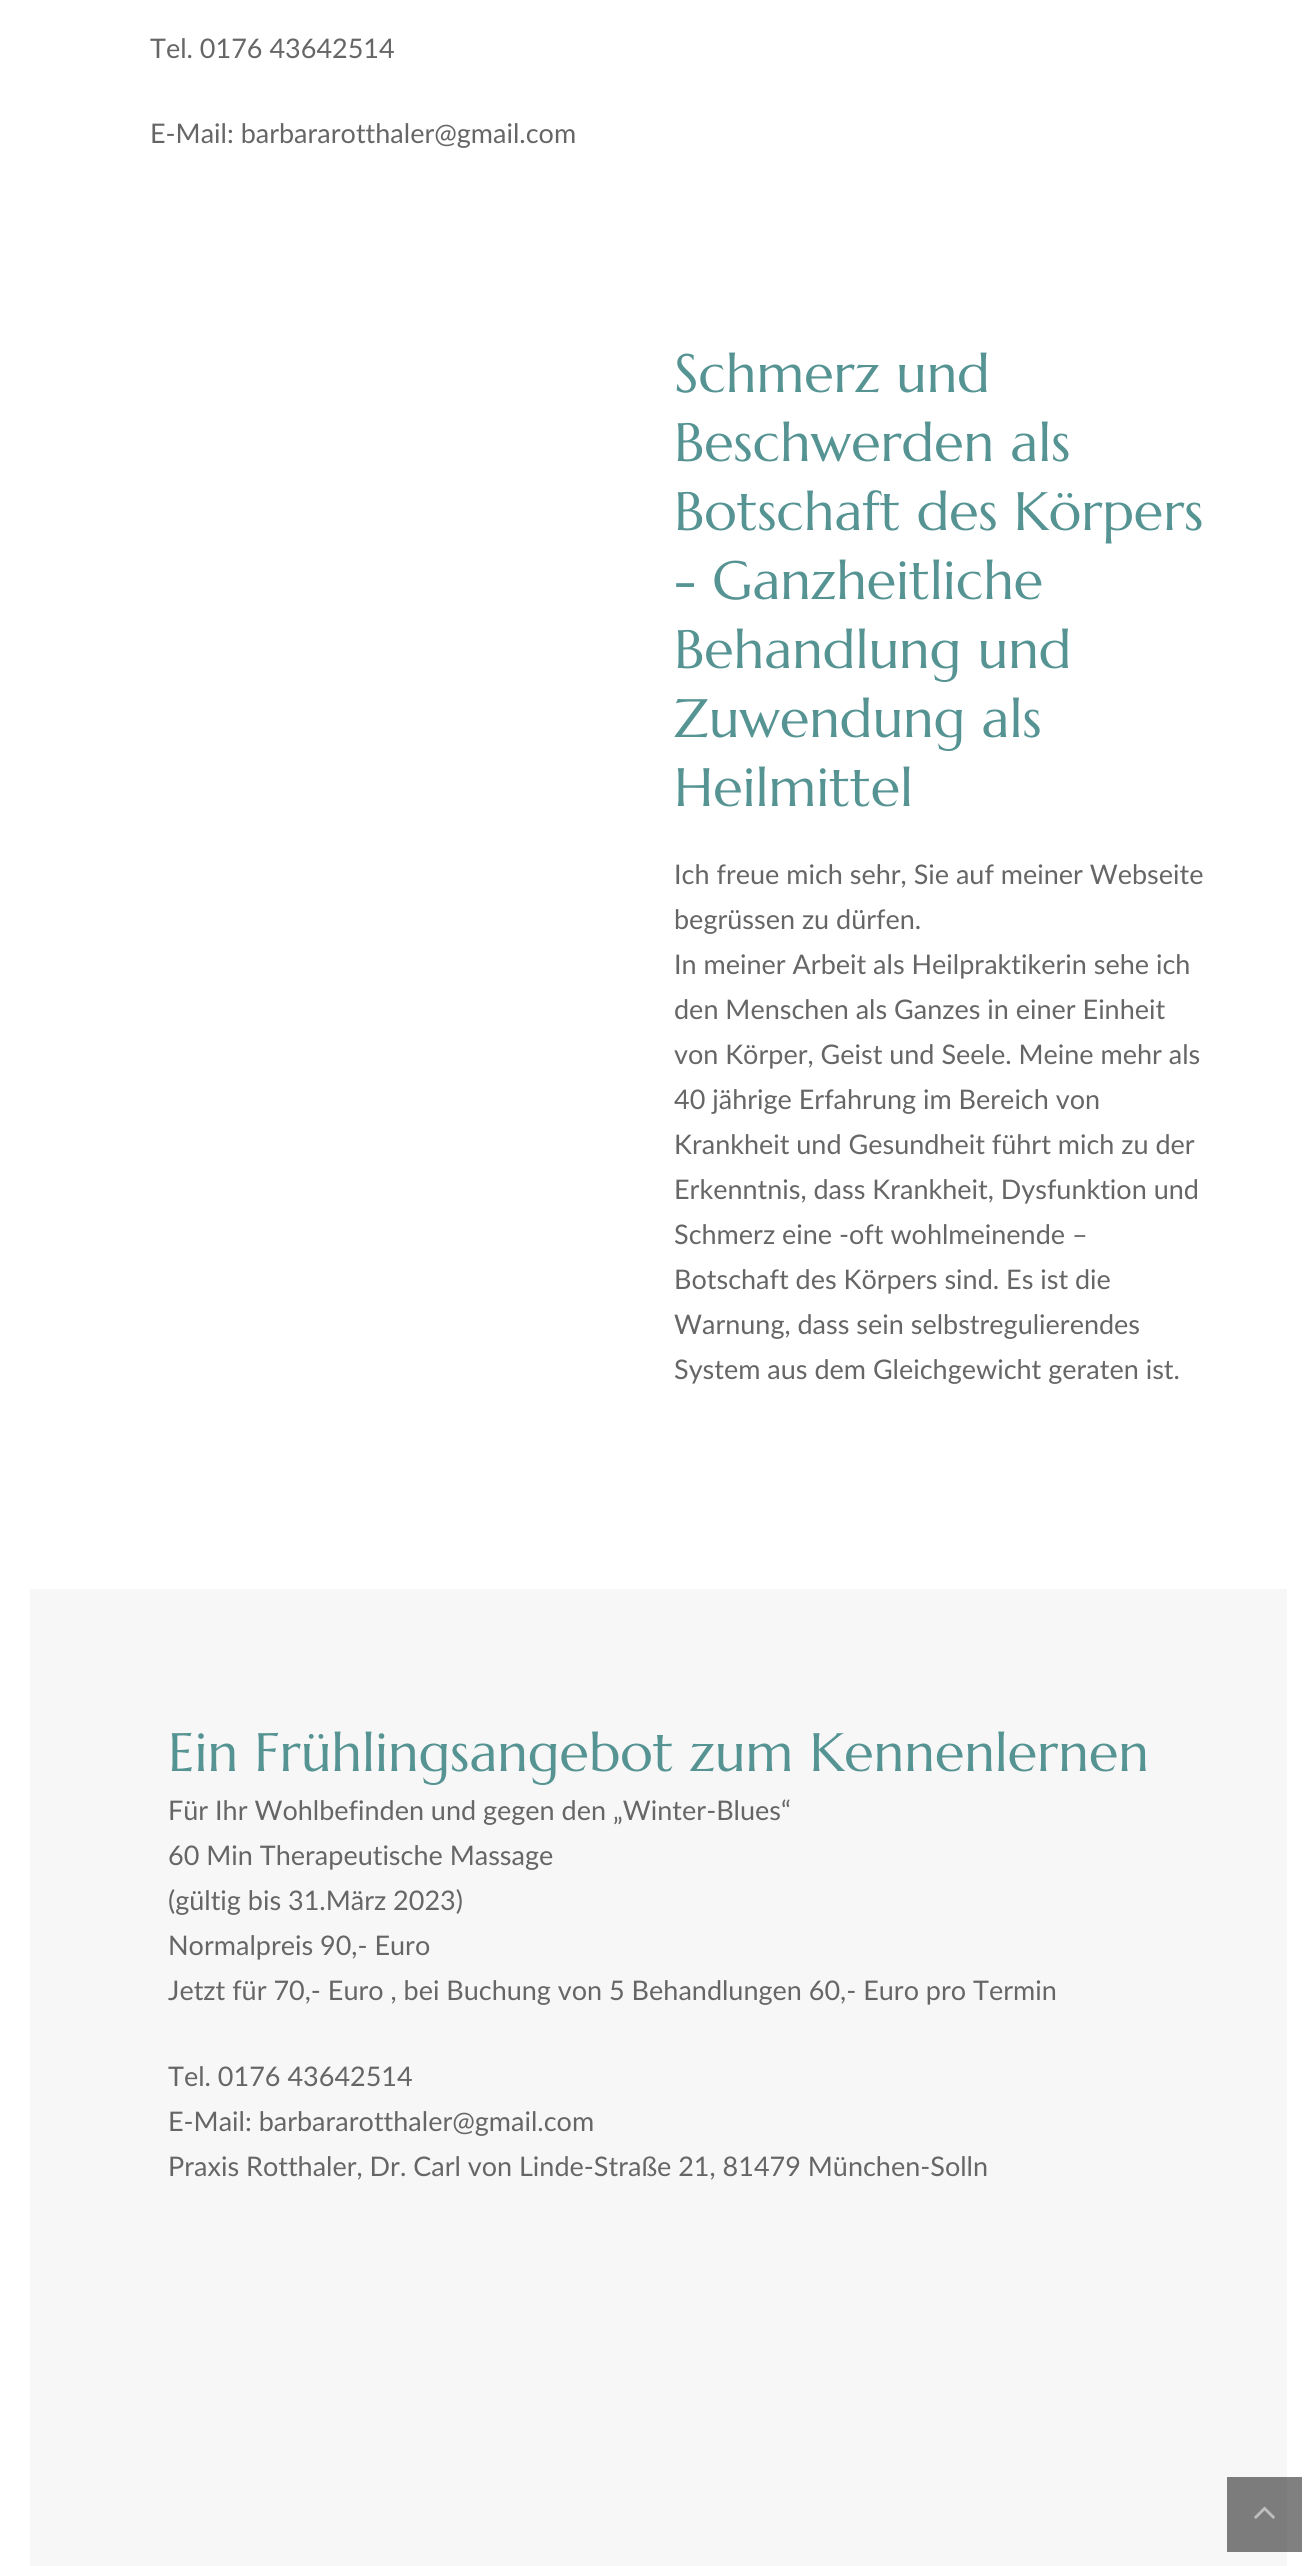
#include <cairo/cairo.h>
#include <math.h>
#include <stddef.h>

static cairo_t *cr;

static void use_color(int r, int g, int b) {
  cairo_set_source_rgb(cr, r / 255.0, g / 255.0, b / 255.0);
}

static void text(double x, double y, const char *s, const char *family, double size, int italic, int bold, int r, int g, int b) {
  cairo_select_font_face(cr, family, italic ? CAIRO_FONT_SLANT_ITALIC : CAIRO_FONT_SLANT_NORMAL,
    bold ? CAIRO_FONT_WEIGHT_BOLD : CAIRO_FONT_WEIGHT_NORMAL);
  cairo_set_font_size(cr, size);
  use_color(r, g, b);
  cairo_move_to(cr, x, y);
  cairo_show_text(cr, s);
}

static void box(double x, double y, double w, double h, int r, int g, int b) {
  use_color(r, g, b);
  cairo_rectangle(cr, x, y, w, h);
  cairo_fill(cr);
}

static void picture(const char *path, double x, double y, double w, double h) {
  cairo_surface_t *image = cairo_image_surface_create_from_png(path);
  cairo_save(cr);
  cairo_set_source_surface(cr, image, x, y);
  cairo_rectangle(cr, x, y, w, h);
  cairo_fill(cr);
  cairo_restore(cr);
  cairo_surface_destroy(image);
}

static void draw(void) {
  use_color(255, 255, 255);
  cairo_paint(cr);
  box(1287, 2477, 15, 75, 128, 128, 128);
  box(30, 1589, 1257, 977, 247, 247, 247);
  box(1227, 2477, 60, 75, 124, 124, 124);
  picture("img_01.png", 1254, 2506, 21, 13);
  text(150, 58, "Tel. 0176 43642514", "Lato", 27, 0, 0, 102, 102, 102);
  text(150, 143, "E-Mail: barbararotthaler@gmail.com", "Lato", 27, 0, 0, 102, 102, 102);
  text(674, 392, "Schmerz und", "Marcellus", 54, 0, 0, 86, 147, 147);
  text(674, 461, "Beschwerden als", "Marcellus", 54, 0, 0, 86, 147, 147);
  text(674, 530, "Botschaft des Körpers", "Marcellus", 54, 0, 0, 86, 147, 147);
  text(674, 599, "- Ganzheitliche", "Marcellus", 54, 0, 0, 86, 147, 147);
  text(674, 668, "Behandlung und", "Marcellus", 54, 0, 0, 86, 147, 147);
  text(674, 737, "Zuwendung als", "Marcellus", 54, 0, 0, 86, 147, 147);
  text(674, 806, "Heilmittel", "Marcellus", 54, 0, 0, 86, 147, 147);
  text(674, 884, "Ich freue mich sehr, Sie auf meiner Webseite", "Lato", 27, 0, 0, 102, 102, 102);
  text(674, 929, "begrüssen zu dürfen.", "Lato", 27, 0, 0, 102, 102, 102);
  text(674, 974, "In meiner Arbeit als Heilpraktikerin sehe ich", "Lato", 27, 0, 0, 102, 102, 102);
  text(674, 1019, "den Menschen als Ganzes in einer Einheit", "Lato", 27, 0, 0, 102, 102, 102);
  text(674, 1064, "von Körper, Geist und Seele. Meine mehr als", "Lato", 27, 0, 0, 102, 102, 102);
  text(674, 1109, "40 jährige Erfahrung im Bereich von", "Lato", 27, 0, 0, 102, 102, 102);
  text(674, 1154, "Krankheit und Gesundheit führt mich zu der", "Lato", 27, 0, 0, 102, 102, 102);
  text(674, 1199, "Erkenntnis, dass Krankheit, Dysfunktion und", "Lato", 27, 0, 0, 102, 102, 102);
  text(674, 1244, "Schmerz eine -oft wohlmeinende –", "Lato", 27, 0, 0, 102, 102, 102);
  text(674, 1289, "Botschaft des Körpers sind. Es ist die", "Lato", 27, 0, 0, 102, 102, 102);
  text(674, 1334, "Warnung, dass sein selbstregulierendes", "Lato", 27, 0, 0, 102, 102, 102);
  text(674, 1379, "System aus dem Gleichgewicht geraten ist.", "Lato", 27, 0, 0, 102, 102, 102);
  text(168, 1771, "Ein Frühlingsangebot zum Kennenlernen", "Marcellus", 54, 0, 0, 86, 147, 147);
  text(168, 1820, "Für Ihr Wohlbefinden und gegen den „Winter-Blues“", "Lato", 27, 0, 0, 102, 102, 102);
  text(168, 1865, "60 Min Therapeutische Massage", "Lato", 27, 0, 0, 102, 102, 102);
  text(168, 1910, "(gültig bis 31.März 2023)", "Lato", 27, 0, 0, 102, 102, 102);
  text(168, 1955, "Normalpreis 90,- Euro", "Lato", 27, 0, 0, 102, 102, 102);
  text(168, 2000, "Jetzt für 70,- Euro , bei Buchung von 5 Behandlungen 60,- Euro pro Termin", "Lato", 27, 0, 0, 102, 102, 102);
  text(168, 2086, "Tel. 0176 43642514", "Lato", 27, 0, 0, 102, 102, 102);
  text(168, 2131, "E-Mail: barbararotthaler@gmail.com", "Lato", 27, 0, 0, 102, 102, 102);
  text(168, 2176, "Praxis Rotthaler, Dr. Carl von Linde-Straße 21, 81479 München-Solln", "Lato", 27, 0, 0, 102, 102, 102);
}

int main(void) {
  cairo_surface_t *surface = cairo_image_surface_create(CAIRO_FORMAT_RGB24, 1316, 2566);
  cr = cairo_create(surface);
  cairo_font_options_t *options = cairo_font_options_create();
  cairo_font_options_set_hint_metrics(options, CAIRO_HINT_METRICS_OFF);
  cairo_font_options_set_hint_style(options, CAIRO_HINT_STYLE_NONE);
  cairo_set_font_options(cr, options);
  cairo_set_miter_limit(cr, 4);
  draw();
  cairo_surface_write_to_png(surface, "out.png");
  cairo_font_options_destroy(options);
  cairo_destroy(cr);
  cairo_surface_destroy(surface);
  return 0;
}
